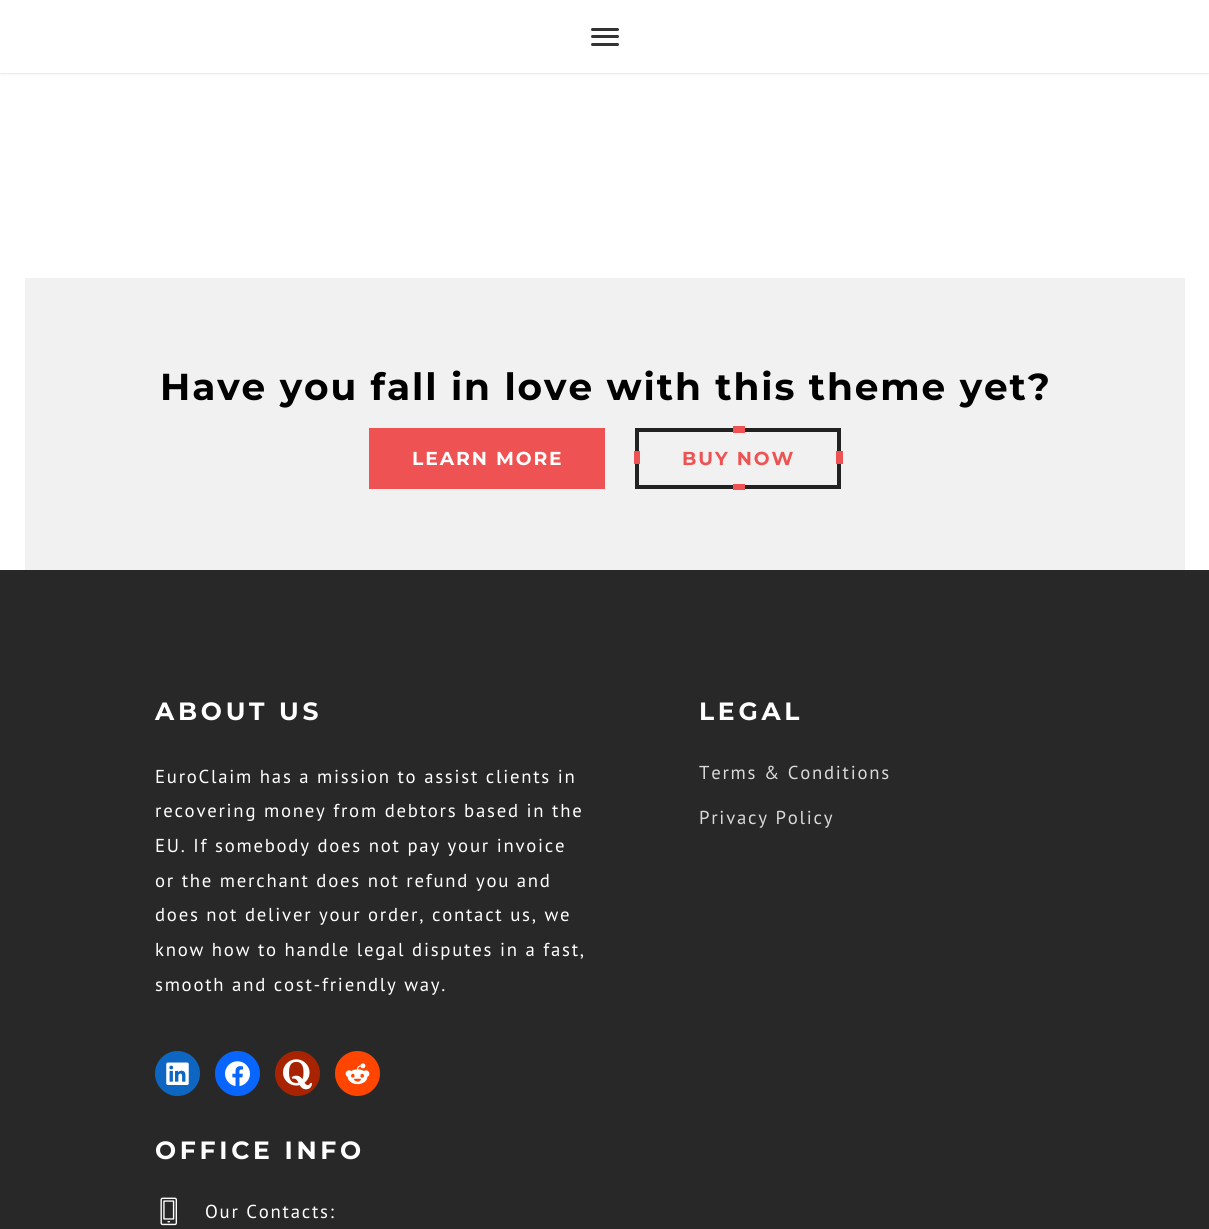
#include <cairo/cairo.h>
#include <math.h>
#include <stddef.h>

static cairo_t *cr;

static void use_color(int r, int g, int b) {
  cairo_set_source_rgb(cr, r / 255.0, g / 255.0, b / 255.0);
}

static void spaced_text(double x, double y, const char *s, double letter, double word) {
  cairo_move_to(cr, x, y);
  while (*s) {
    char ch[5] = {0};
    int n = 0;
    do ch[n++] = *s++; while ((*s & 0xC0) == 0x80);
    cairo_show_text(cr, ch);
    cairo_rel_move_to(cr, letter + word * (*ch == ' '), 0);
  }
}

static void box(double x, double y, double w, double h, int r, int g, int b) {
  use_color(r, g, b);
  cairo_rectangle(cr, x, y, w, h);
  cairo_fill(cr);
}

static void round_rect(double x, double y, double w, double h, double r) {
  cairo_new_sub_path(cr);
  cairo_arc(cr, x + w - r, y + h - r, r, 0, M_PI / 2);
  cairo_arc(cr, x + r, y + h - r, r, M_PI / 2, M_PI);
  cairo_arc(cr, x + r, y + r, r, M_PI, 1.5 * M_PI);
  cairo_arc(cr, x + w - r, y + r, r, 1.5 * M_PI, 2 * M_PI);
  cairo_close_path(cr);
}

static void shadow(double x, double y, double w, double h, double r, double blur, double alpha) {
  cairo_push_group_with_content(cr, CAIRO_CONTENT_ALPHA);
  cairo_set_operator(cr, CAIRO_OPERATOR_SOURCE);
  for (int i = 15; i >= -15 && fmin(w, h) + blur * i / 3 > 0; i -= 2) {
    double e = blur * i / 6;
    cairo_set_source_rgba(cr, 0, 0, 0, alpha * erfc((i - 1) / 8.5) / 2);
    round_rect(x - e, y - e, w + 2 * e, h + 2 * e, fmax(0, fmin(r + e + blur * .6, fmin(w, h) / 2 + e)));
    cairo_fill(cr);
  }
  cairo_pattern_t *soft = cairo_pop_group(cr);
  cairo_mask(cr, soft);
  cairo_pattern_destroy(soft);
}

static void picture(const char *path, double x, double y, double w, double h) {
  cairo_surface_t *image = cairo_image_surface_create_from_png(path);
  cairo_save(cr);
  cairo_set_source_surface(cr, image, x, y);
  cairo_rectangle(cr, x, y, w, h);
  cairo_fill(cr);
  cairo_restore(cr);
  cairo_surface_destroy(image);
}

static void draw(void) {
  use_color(255, 255, 255);
  cairo_paint(cr);
  use_color(0, 0, 0);
  shadow(1, 1, 1208, 70, 0, 2, 0.65);
  box(0, 0, 1209, 73, 255, 255, 255);
  use_color(51, 51, 51);
  round_rect(591, 28, 28, 3, 1.5);
  cairo_fill(cr);
  round_rect(591, 35, 28, 3, 1.5);
  cairo_fill(cr);
  round_rect(591, 43, 28, 3, 1.5);
  cairo_fill(cr);
  box(25, 278, 1160, 292, 241, 241, 241);
  box(369, 428, 236, 61, 239, 82, 82);
  cairo_rectangle(cr, 637, 430, 202, 57);
  use_color(34, 34, 34);
  cairo_set_line_width(cr, 4);
  cairo_stroke(cr);
  box(733, 426, 12, 7, 239, 82, 82);
  box(733, 484, 12, 6, 239, 82, 82);
  box(836, 451, 7, 13, 239, 82, 82);
  box(634, 451, 6, 13, 239, 82, 82);
  box(0, 570, 1209, 659, 40, 40, 40);
  use_color(13, 102, 194);
  cairo_arc(cr, 177.5, 1073.5, 22.5, 0, 2 * M_PI);
  cairo_fill(cr);
  picture("img_01.png", 166, 1062, 23, 23);
  use_color(8, 102, 255);
  cairo_arc(cr, 237.5, 1073.5, 22.5, 0, 2 * M_PI);
  cairo_fill(cr);
  picture("img_02.png", 225, 1061, 25, 26);
  use_color(168, 36, 0);
  cairo_arc(cr, 297.5, 1073.5, 22.5, 0, 2 * M_PI);
  cairo_fill(cr);
  picture("img_03.png", 283, 1059, 29, 31);
  use_color(255, 69, 0);
  cairo_arc(cr, 357.5, 1073.5, 22.5, 0, 2 * M_PI);
  cairo_fill(cr);
  picture("img_04.png", 345, 1063, 25, 22);
  picture("img_05.png", 160, 1197, 17, 29);
  cairo_select_font_face(cr, "Montserrat Thin", CAIRO_FONT_SLANT_NORMAL, CAIRO_FONT_WEIGHT_NORMAL);
  cairo_set_font_size(cr, 37.5);
  use_color(0, 0, 0);
  spaced_text(160, 400, "Have you fall in love with this theme yet?", 1.9, 0);
  cairo_set_font_size(cr, 18.75);
  use_color(255, 255, 255);
  spaced_text(412, 465, "LEARN MORE", 1.9, 0);
  use_color(239, 82, 82);
  spaced_text(682, 465, "BUY NOW", 1.9, 0);
  cairo_set_font_size(cr, 25);
  use_color(255, 255, 255);
  spaced_text(155, 720, "ABOUT US", 3.75, 0);
  cairo_select_font_face(cr, "PT Sans", CAIRO_FONT_SLANT_NORMAL, CAIRO_FONT_WEIGHT_NORMAL);
  cairo_set_font_size(cr, 18.75);
  spaced_text(155, 783, "EuroClaim has a mission to assist clients in", 1.75, 0);
  spaced_text(155, 817, "recovering money from debtors based in the", 1.75, 0);
  spaced_text(155, 852, "EU. If somebody does not pay your invoice", 1.75, 0);
  spaced_text(155, 887, "or the merchant does not refund you and", 1.75, 0);
  spaced_text(155, 921, "does not deliver your order, contact us, we", 1.75, 0);
  spaced_text(155, 956, "know how to handle legal disputes in a fast,", 1.75, 0);
  spaced_text(155, 991, "smooth and cost-friendly way.", 1.75, 0);
  cairo_select_font_face(cr, "Montserrat Thin", CAIRO_FONT_SLANT_NORMAL, CAIRO_FONT_WEIGHT_NORMAL);
  cairo_set_font_size(cr, 25);
  spaced_text(699, 720, "LEGAL", 3.75, 0);
  cairo_select_font_face(cr, "PT Sans", CAIRO_FONT_SLANT_NORMAL, CAIRO_FONT_WEIGHT_NORMAL);
  cairo_set_font_size(cr, 18.75);
  use_color(217, 217, 217);
  spaced_text(699, 779, "Terms & Conditions", 1.75, 0);
  spaced_text(699, 824, "Privacy Policy", 1.75, 0);
  cairo_select_font_face(cr, "Montserrat Thin", CAIRO_FONT_SLANT_NORMAL, CAIRO_FONT_WEIGHT_NORMAL);
  cairo_set_font_size(cr, 25);
  use_color(255, 255, 255);
  spaced_text(155, 1159, "OFFICE INFO", 3.75, 0);
  cairo_select_font_face(cr, "PT Sans", CAIRO_FONT_SLANT_NORMAL, CAIRO_FONT_WEIGHT_NORMAL);
  cairo_set_font_size(cr, 18.75);
  spaced_text(205, 1218, "Our Contacts:", 1.75, 0);
}

int main(void) {
  cairo_surface_t *surface = cairo_image_surface_create(CAIRO_FORMAT_RGB24, 1209, 1229);
  cr = cairo_create(surface);
  cairo_font_options_t *options = cairo_font_options_create();
  cairo_font_options_set_hint_metrics(options, CAIRO_HINT_METRICS_OFF);
  cairo_font_options_set_hint_style(options, CAIRO_HINT_STYLE_NONE);
  cairo_set_font_options(cr, options);
  cairo_set_miter_limit(cr, 4);
  draw();
  cairo_surface_write_to_png(surface, "out.png");
  cairo_font_options_destroy(options);
  cairo_destroy(cr);
  cairo_surface_destroy(surface);
  return 0;
}
